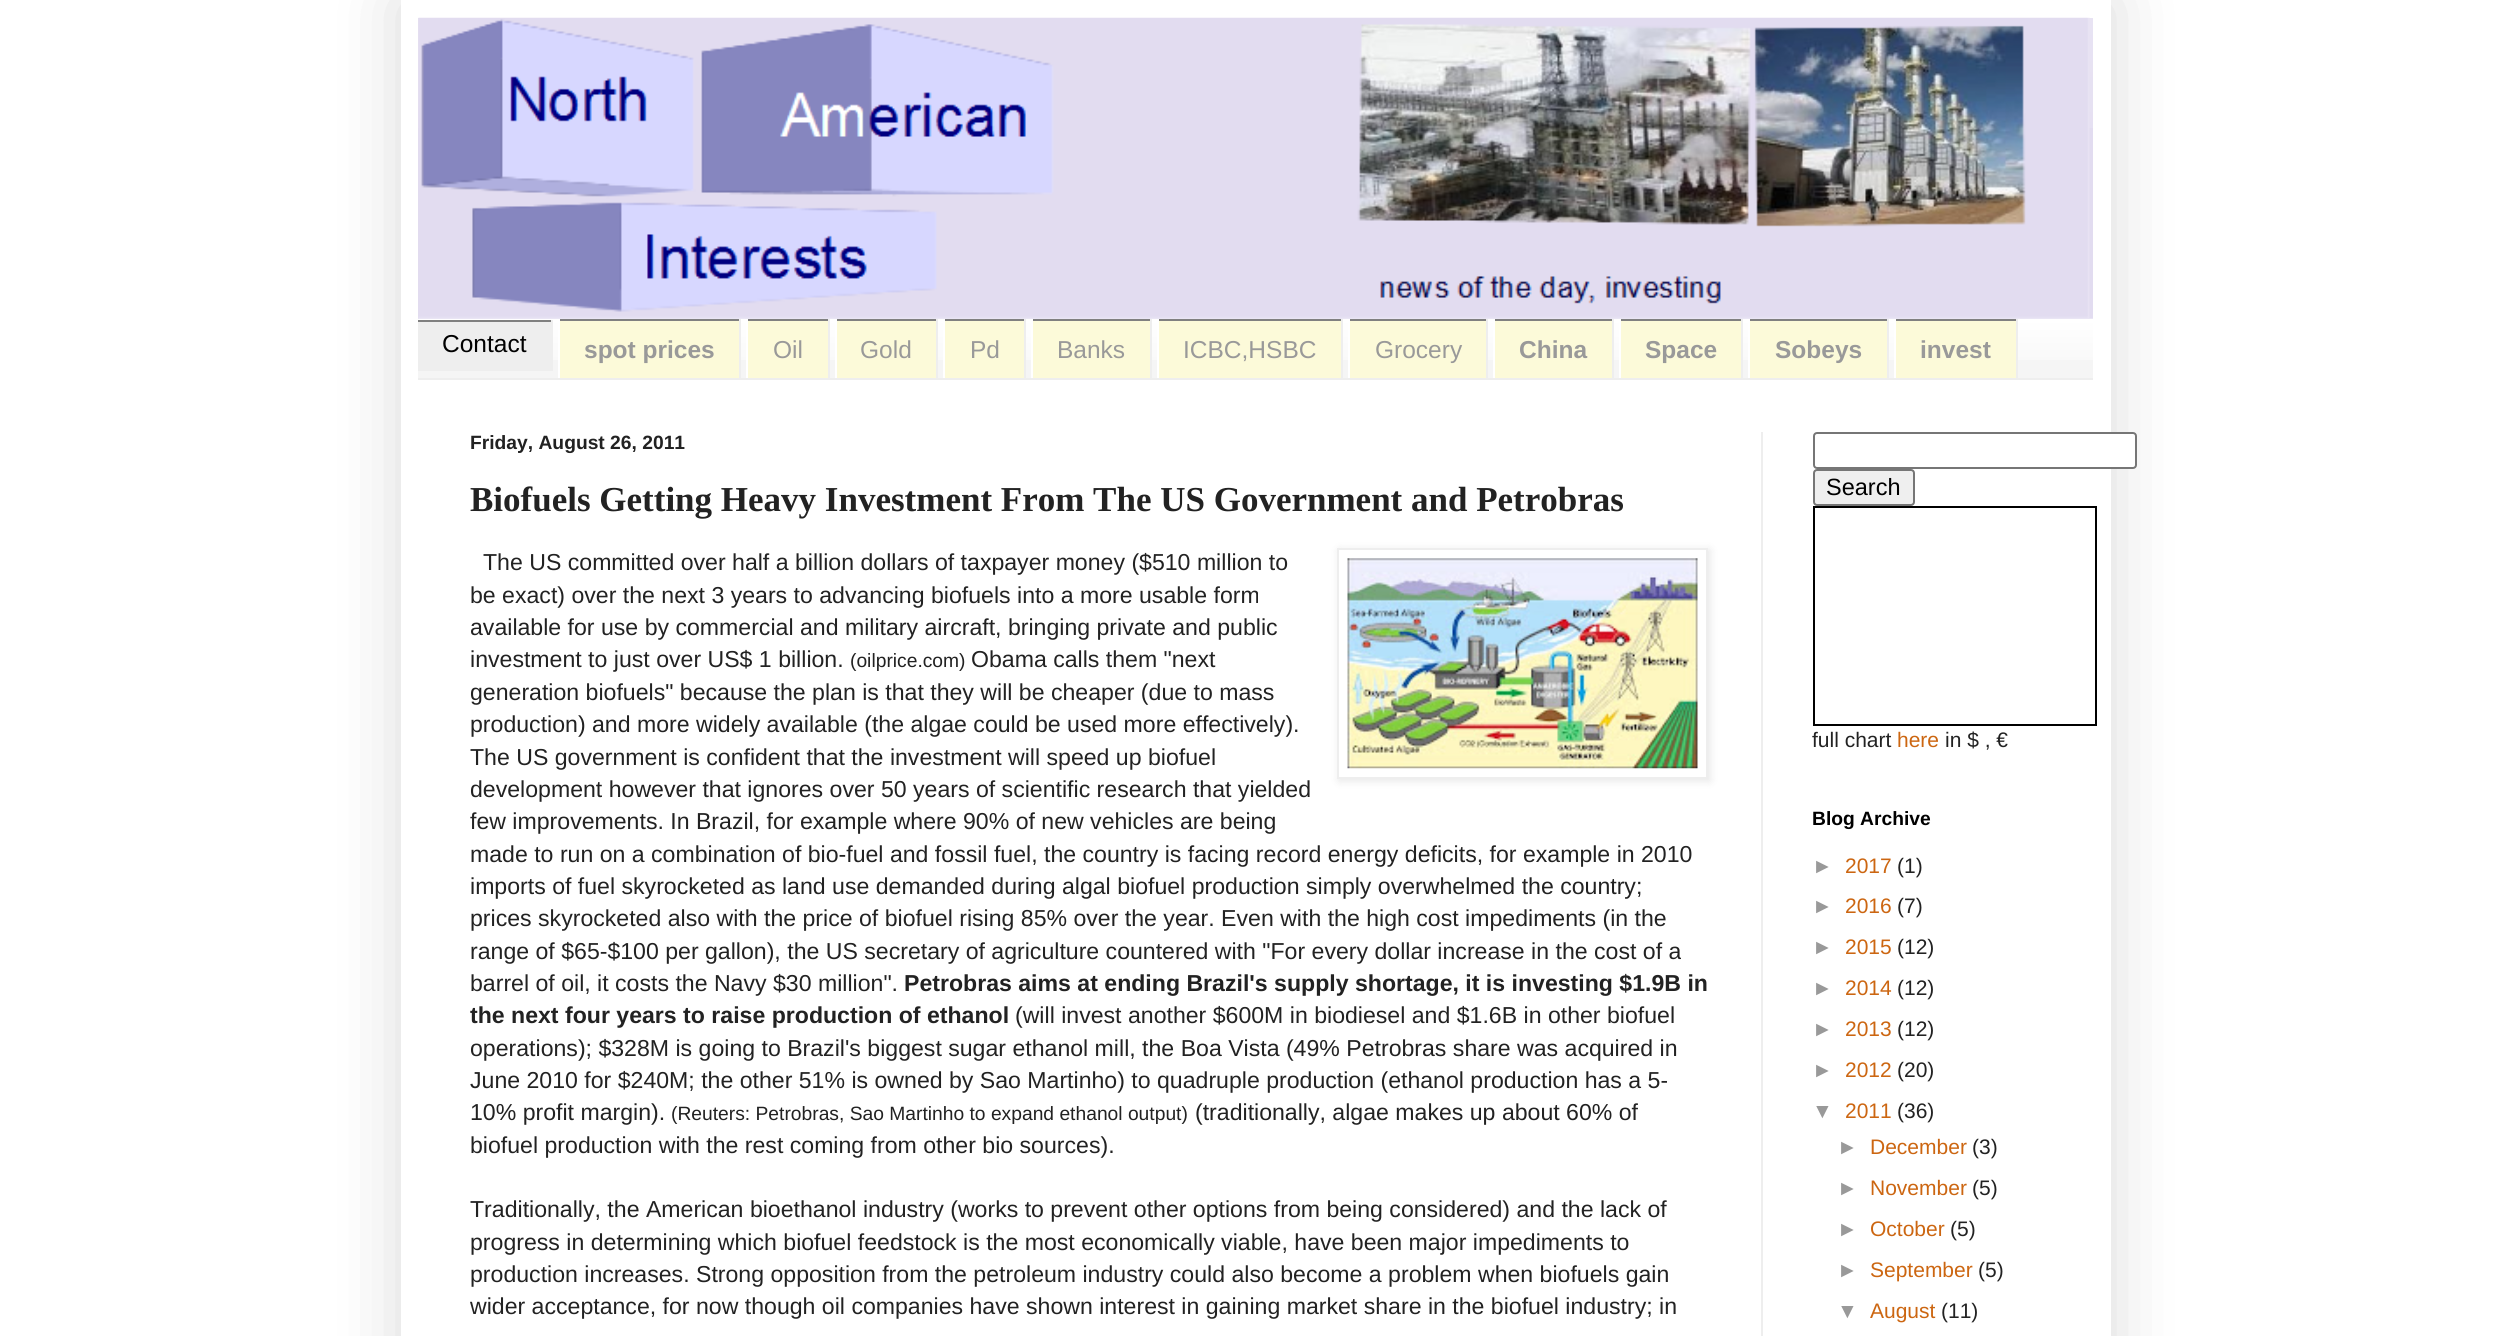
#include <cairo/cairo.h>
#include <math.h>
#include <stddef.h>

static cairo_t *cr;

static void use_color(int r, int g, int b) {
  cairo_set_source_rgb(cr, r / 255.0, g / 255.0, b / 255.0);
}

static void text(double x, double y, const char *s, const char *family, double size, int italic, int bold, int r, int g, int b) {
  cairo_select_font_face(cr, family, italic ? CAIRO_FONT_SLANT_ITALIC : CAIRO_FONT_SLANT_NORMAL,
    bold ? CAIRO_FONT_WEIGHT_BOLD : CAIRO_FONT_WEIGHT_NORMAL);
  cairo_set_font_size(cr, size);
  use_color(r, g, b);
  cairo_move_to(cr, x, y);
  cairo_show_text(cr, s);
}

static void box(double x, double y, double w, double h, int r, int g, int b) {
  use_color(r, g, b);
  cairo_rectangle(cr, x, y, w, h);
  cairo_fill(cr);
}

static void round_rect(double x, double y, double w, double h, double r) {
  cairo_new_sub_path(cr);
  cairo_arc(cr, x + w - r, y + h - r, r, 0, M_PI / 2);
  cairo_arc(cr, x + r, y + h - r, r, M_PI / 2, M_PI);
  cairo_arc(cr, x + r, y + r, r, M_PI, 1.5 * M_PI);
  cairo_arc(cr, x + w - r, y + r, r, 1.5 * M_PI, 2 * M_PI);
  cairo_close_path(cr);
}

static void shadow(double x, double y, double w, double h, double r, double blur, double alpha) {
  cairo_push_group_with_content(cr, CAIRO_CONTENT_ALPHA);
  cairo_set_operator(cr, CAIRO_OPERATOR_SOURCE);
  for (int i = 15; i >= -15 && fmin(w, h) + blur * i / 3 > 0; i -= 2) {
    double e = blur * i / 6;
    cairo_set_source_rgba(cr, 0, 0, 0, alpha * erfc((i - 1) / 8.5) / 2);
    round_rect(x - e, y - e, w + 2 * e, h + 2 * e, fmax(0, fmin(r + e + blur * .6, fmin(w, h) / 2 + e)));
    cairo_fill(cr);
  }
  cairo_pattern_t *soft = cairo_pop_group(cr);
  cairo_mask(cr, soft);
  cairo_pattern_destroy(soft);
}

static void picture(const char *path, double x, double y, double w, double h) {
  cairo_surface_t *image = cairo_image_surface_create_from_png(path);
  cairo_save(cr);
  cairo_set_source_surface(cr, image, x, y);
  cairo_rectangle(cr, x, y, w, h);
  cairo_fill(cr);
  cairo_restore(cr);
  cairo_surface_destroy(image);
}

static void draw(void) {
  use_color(255, 255, 255);
  cairo_paint(cr);
  use_color(0, 0, 0);
  shadow(401, 0, 1710, 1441, 0, 35, 0.15);
  box(401, 0, 1710, 1336, 255, 255, 255);
  box(418, 18, 1675, 301, 226, 220, 240);
  picture("img_01.png", 418, 18, 1675, 110);
  picture("img_02.png", 418, 17, 1672, 301);
  box(418, 319, 1675, 59, 245, 245, 245);
  picture("img_03.png", 418, 318, 1675, 42);
  box(418, 378, 1675, 2, 238, 238, 238);
  box(418, 322, 133, 49, 238, 238, 238);
  box(418, 320, 135, 2, 128, 128, 128);
  box(551, 320, 2, 51, 238, 238, 238);
  box(560, 321, 179, 57, 252, 250, 217);
  box(558, 319, 182, 2, 128, 128, 128);
  box(739, 319, 2, 59, 238, 238, 238);
  box(558, 319, 2, 59, 255, 255, 255);
  box(748, 321, 80, 57, 252, 250, 217);
  box(746, 319, 84, 2, 128, 128, 128);
  box(828, 319, 2, 59, 238, 238, 238);
  box(746, 319, 2, 59, 255, 255, 255);
  box(837, 321, 99, 57, 252, 250, 217);
  box(835, 319, 103, 2, 128, 128, 128);
  box(936, 319, 2, 59, 238, 238, 238);
  box(835, 319, 2, 59, 255, 255, 255);
  box(945, 321, 79, 57, 252, 250, 217);
  box(943, 319, 83, 2, 128, 128, 128);
  box(1024, 319, 2, 59, 238, 238, 238);
  box(943, 319, 2, 59, 255, 255, 255);
  box(1033, 321, 117, 57, 252, 250, 217);
  box(1031, 319, 121, 2, 128, 128, 128);
  box(1150, 319, 2, 59, 238, 238, 238);
  box(1031, 319, 2, 59, 255, 255, 255);
  box(1159, 321, 182, 57, 252, 250, 217);
  box(1157, 319, 185, 2, 128, 128, 128);
  box(1341, 319, 2, 59, 238, 238, 238);
  box(1157, 319, 2, 59, 255, 255, 255);
  box(1350, 321, 136, 57, 252, 250, 217);
  box(1348, 319, 140, 2, 128, 128, 128);
  box(1486, 319, 2, 59, 238, 238, 238);
  box(1348, 319, 2, 59, 255, 255, 255);
  box(1495, 321, 117, 57, 252, 250, 217);
  box(1493, 319, 121, 2, 128, 128, 128);
  box(1612, 319, 2, 59, 238, 238, 238);
  box(1493, 319, 2, 59, 255, 255, 255);
  box(1621, 321, 120, 57, 252, 250, 217);
  box(1619, 319, 124, 2, 128, 128, 128);
  box(1741, 319, 2, 59, 238, 238, 238);
  box(1619, 319, 2, 59, 255, 255, 255);
  box(1750, 321, 137, 57, 252, 250, 217);
  box(1748, 319, 140, 2, 128, 128, 128);
  box(1887, 319, 2, 59, 238, 238, 238);
  box(1748, 319, 2, 59, 255, 255, 255);
  box(1896, 321, 120, 57, 252, 250, 217);
  box(1894, 319, 124, 2, 128, 128, 128);
  box(2016, 319, 2, 59, 238, 238, 238);
  box(1894, 319, 2, 59, 255, 255, 255);
  box(1761, 432, 2, 904, 238, 238, 238);
  use_color(0, 0, 0);
  shadow(1339, 550, 371, 231, 0, 4.5, 0.1);
  use_color(255, 255, 255);
  cairo_rectangle(cr, 1338, 549, 369, 229);
  cairo_fill_preserve(cr);
  use_color(238, 238, 238);
  cairo_stroke(cr);
  picture("img_04.png", 1347, 558, 351, 211);
  use_color(255, 255, 255);
  round_rect(1814, 433, 322, 35, 3);
  cairo_fill_preserve(cr);
  use_color(118, 118, 118);
  cairo_stroke(cr);
  use_color(239, 239, 239);
  round_rect(1814, 470, 100, 35, 3);
  cairo_fill_preserve(cr);
  use_color(118, 118, 118);
  cairo_stroke(cr);
  cairo_rectangle(cr, 1814, 507, 282, 218);
  use_color(0, 0, 0);
  cairo_stroke(cr);
  text(442, 352, "Contact", "Liberation Sans", 24.5, 0, 0, 0, 0, 0);
  text(584, 358, "spot prices", "Liberation Sans", 24.5, 0, 1, 153, 153, 153);
  text(773, 358, "Oil", "Liberation Sans", 24.5, 0, 0, 153, 153, 153);
  text(860, 358, "Gold", "Liberation Sans", 24.5, 0, 0, 153, 153, 153);
  text(970, 358, "Pd", "Liberation Sans", 24.5, 0, 0, 153, 153, 153);
  text(1057, 358, "Banks", "Liberation Sans", 24.5, 0, 0, 153, 153, 153);
  text(1183, 358, "ICBC,HSBC", "Liberation Sans", 24.5, 0, 0, 153, 153, 153);
  text(1375, 358, "Grocery", "Liberation Sans", 24.5, 0, 0, 153, 153, 153);
  text(1519, 358, "China", "Liberation Sans", 24.5, 0, 1, 153, 153, 153);
  text(1645, 358, "Space", "Liberation Sans", 24.5, 0, 1, 153, 153, 153);
  text(1775, 358, "Sobeys", "Liberation Sans", 24.5, 0, 1, 153, 153, 153);
  text(1920, 358, "invest", "Liberation Sans", 24.5, 0, 1, 153, 153, 153);
  text(470, 449, "Friday, August 26, 2011", "Liberation Sans", 19.25, 0, 1, 34, 34, 34);
  text(470, 511, "Biofuels Getting Heavy Investment From The US Government and Petrobras", "Liberation Serif", 35, 0, 1, 34, 34, 34);
  text(483, 570, "The US committed over half a billion dollars of taxpayer money ($510 million to", "Liberation Sans", 23.1, 0, 0, 34, 34, 34);
  text(470, 603, "be exact) over the next 3 years to advancing biofuels into a more usable form", "Liberation Sans", 23.1, 0, 0, 34, 34, 34);
  text(470, 635, "available for use by commercial and military aircraft, bringing private and public", "Liberation Sans", 23.1, 0, 0, 34, 34, 34);
  text(470, 667, "investment to just over US$ 1 billion.", "Liberation Sans", 23.1, 0, 0, 34, 34, 34);
  text(850, 667, "(oilprice.com)", "Liberation Sans", 19.25, 0, 0, 34, 34, 34);
  text(971, 667, "Obama calls them \"next", "Liberation Sans", 23.1, 0, 0, 34, 34, 34);
  text(470, 700, "generation biofuels\" because the plan is that they will be cheaper (due to mass", "Liberation Sans", 23.1, 0, 0, 34, 34, 34);
  text(470, 732, "production) and more widely available (the algae could be used more effectively).", "Liberation Sans", 23.1, 0, 0, 34, 34, 34);
  text(470, 765, "The US government is confident that the investment will speed up biofuel", "Liberation Sans", 23.1, 0, 0, 34, 34, 34);
  text(470, 797, "development however that ignores over 50 years of scientific research that yielded", "Liberation Sans", 23.1, 0, 0, 34, 34, 34);
  text(470, 829, "few improvements. In Brazil, for example where 90% of new vehicles are being", "Liberation Sans", 23.1, 0, 0, 34, 34, 34);
  text(470, 862, "made to run on a combination of bio-fuel and fossil fuel, the country is facing record energy deficits, for example in 2010", "Liberation Sans", 23.1, 0, 0, 34, 34, 34);
  text(470, 894, "imports of fuel skyrocketed as land use demanded during algal biofuel production simply overwhelmed the country;", "Liberation Sans", 23.1, 0, 0, 34, 34, 34);
  text(470, 926, "prices skyrocketed also with the price of biofuel rising 85% over the year. Even with the high cost impediments (in the", "Liberation Sans", 23.1, 0, 0, 34, 34, 34);
  text(470, 959, "range of $65-$100 per gallon), the US secretary of agriculture countered with \"For every dollar increase in the cost of a", "Liberation Sans", 23.1, 0, 0, 34, 34, 34);
  text(470, 991, "barrel of oil, it costs the Navy $30 million\".", "Liberation Sans", 23.1, 0, 0, 34, 34, 34);
  text(904, 991, "Petrobras aims at ending Brazil's supply shortage, it is investing $1.9B in", "Liberation Sans", 23.1, 0, 1, 34, 34, 34);
  text(470, 1023, "the next four years to raise production of ethanol", "Liberation Sans", 23.1, 0, 1, 34, 34, 34);
  text(1015, 1023, "(will invest another $600M in biodiesel and $1.6B in other biofuel", "Liberation Sans", 23.1, 0, 0, 34, 34, 34);
  text(470, 1056, "operations); $328M is going to Brazil's biggest sugar ethanol mill, the Boa Vista (49% Petrobras share was acquired in", "Liberation Sans", 23.1, 0, 0, 34, 34, 34);
  text(470, 1088, "June 2010 for $240M; the other 51% is owned by Sao Martinho) to quadruple production (ethanol production has a 5-", "Liberation Sans", 23.1, 0, 0, 34, 34, 34);
  text(470, 1120, "10% profit margin).", "Liberation Sans", 23.1, 0, 0, 34, 34, 34);
  text(671, 1120, "(Reuters: Petrobras, Sao Martinho to expand ethanol output)", "Liberation Sans", 19.25, 0, 0, 34, 34, 34);
  text(1195, 1120, "(traditionally, algae makes up about 60% of", "Liberation Sans", 23.1, 0, 0, 34, 34, 34);
  text(470, 1153, "biofuel production with the rest coming from other bio sources).", "Liberation Sans", 23.1, 0, 0, 34, 34, 34);
  text(470, 1217, "Traditionally, the American bioethanol industry (works to prevent other options from being considered) and the lack of", "Liberation Sans", 23.1, 0, 0, 34, 34, 34);
  text(470, 1250, "progress in determining which biofuel feedstock is the most economically viable, have been major impediments to", "Liberation Sans", 23.1, 0, 0, 34, 34, 34);
  text(470, 1282, "production increases. Strong opposition from the petroleum industry could also become a problem when biofuels gain", "Liberation Sans", 23.1, 0, 0, 34, 34, 34);
  text(470, 1314, "wider acceptance, for now though oil companies have shown interest in gaining market share in the biofuel industry; in", "Liberation Sans", 23.1, 0, 0, 34, 34, 34);
  text(1826, 495, "Search", "Liberation Sans", 23.5, 0, 0, 0, 0, 0);
  text(1812, 747, "full chart", "Liberation Sans", 21, 0, 0, 34, 34, 34);
  text(1897, 747, "here", "Liberation Sans", 21, 0, 0, 204, 102, 17);
  text(1945, 747, "in $ , €", "Liberation Sans", 21, 0, 0, 34, 34, 34);
  text(1812, 825, "Blog Archive", "Liberation Sans", 19.25, 0, 1, 0, 0, 0);
  text(1812, 873, "►", "Liberation Sans", 21, 0, 0, 153, 153, 153);
  text(1845, 873, "2017", "Liberation Sans", 21, 0, 0, 204, 102, 17);
  text(1897, 873, "(1)", "Liberation Sans", 21, 0, 0, 34, 34, 34);
  text(1812, 913, "►", "Liberation Sans", 21, 0, 0, 153, 153, 153);
  text(1845, 913, "2016", "Liberation Sans", 21, 0, 0, 204, 102, 17);
  text(1897, 913, "(7)", "Liberation Sans", 21, 0, 0, 34, 34, 34);
  text(1812, 954, "►", "Liberation Sans", 21, 0, 0, 153, 153, 153);
  text(1845, 954, "2015", "Liberation Sans", 21, 0, 0, 204, 102, 17);
  text(1897, 954, "(12)", "Liberation Sans", 21, 0, 0, 34, 34, 34);
  text(1812, 995, "►", "Liberation Sans", 21, 0, 0, 153, 153, 153);
  text(1845, 995, "2014", "Liberation Sans", 21, 0, 0, 204, 102, 17);
  text(1897, 995, "(12)", "Liberation Sans", 21, 0, 0, 34, 34, 34);
  text(1812, 1036, "►", "Liberation Sans", 21, 0, 0, 153, 153, 153);
  text(1845, 1036, "2013", "Liberation Sans", 21, 0, 0, 204, 102, 17);
  text(1897, 1036, "(12)", "Liberation Sans", 21, 0, 0, 34, 34, 34);
  text(1812, 1077, "►", "Liberation Sans", 21, 0, 0, 153, 153, 153);
  text(1845, 1077, "2012", "Liberation Sans", 21, 0, 0, 204, 102, 17);
  text(1897, 1077, "(20)", "Liberation Sans", 21, 0, 0, 34, 34, 34);
  text(1812, 1118, "▼", "Liberation Sans", 21, 0, 0, 153, 153, 153);
  text(1845, 1118, "2011", "Liberation Sans", 21, 0, 0, 204, 102, 17);
  text(1897, 1118, "(36)", "Liberation Sans", 21, 0, 0, 34, 34, 34);
  text(1837, 1154, "►", "Liberation Sans", 21, 0, 0, 153, 153, 153);
  text(1870, 1154, "December", "Liberation Sans", 21, 0, 0, 204, 102, 17);
  text(1972, 1154, "(3)", "Liberation Sans", 21, 0, 0, 34, 34, 34);
  text(1837, 1195, "►", "Liberation Sans", 21, 0, 0, 153, 153, 153);
  text(1870, 1195, "November", "Liberation Sans", 21, 0, 0, 204, 102, 17);
  text(1972, 1195, "(5)", "Liberation Sans", 21, 0, 0, 34, 34, 34);
  text(1837, 1236, "►", "Liberation Sans", 21, 0, 0, 153, 153, 153);
  text(1870, 1236, "October", "Liberation Sans", 21, 0, 0, 204, 102, 17);
  text(1950, 1236, "(5)", "Liberation Sans", 21, 0, 0, 34, 34, 34);
  text(1837, 1277, "►", "Liberation Sans", 21, 0, 0, 153, 153, 153);
  text(1870, 1277, "September", "Liberation Sans", 21, 0, 0, 204, 102, 17);
  text(1978, 1277, "(5)", "Liberation Sans", 21, 0, 0, 34, 34, 34);
  text(1837, 1318, "▼", "Liberation Sans", 21, 0, 0, 153, 153, 153);
  text(1870, 1318, "August", "Liberation Sans", 21, 0, 0, 204, 102, 17);
  text(1941, 1318, "(11)", "Liberation Sans", 21, 0, 0, 34, 34, 34);
}

int main(void) {
  cairo_surface_t *surface = cairo_image_surface_create(CAIRO_FORMAT_RGB24, 2508, 1336);
  cr = cairo_create(surface);
  cairo_font_options_t *options = cairo_font_options_create();
  cairo_font_options_set_hint_metrics(options, CAIRO_HINT_METRICS_OFF);
  cairo_font_options_set_hint_style(options, CAIRO_HINT_STYLE_NONE);
  cairo_set_font_options(cr, options);
  cairo_set_miter_limit(cr, 4);
  draw();
  cairo_surface_write_to_png(surface, "out.png");
  cairo_font_options_destroy(options);
  cairo_destroy(cr);
  cairo_surface_destroy(surface);
  return 0;
}
